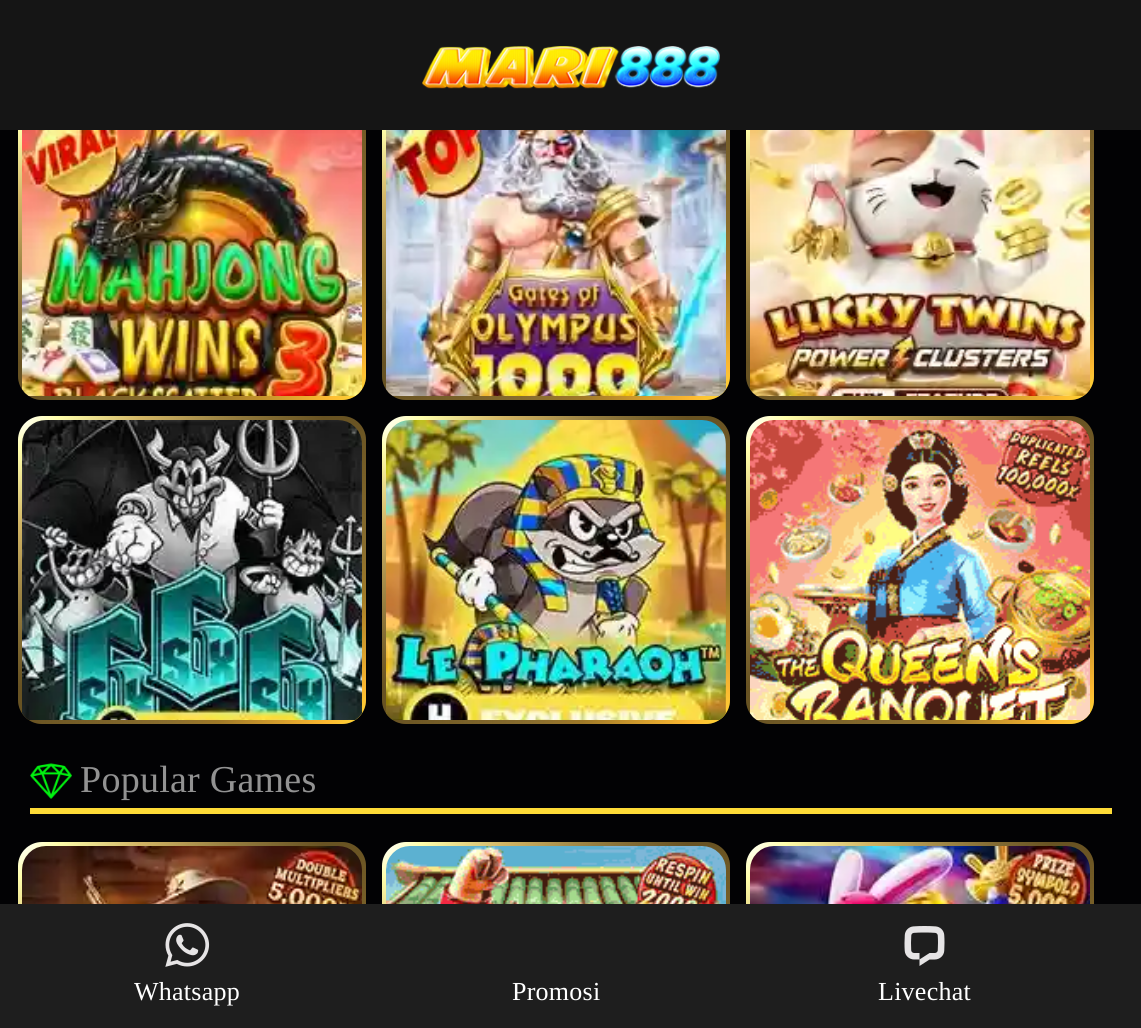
#include <cairo/cairo.h>
#include <math.h>
#include <stddef.h>

static cairo_t *cr;

static void use_color(int r, int g, int b) {
  cairo_set_source_rgb(cr, r / 255.0, g / 255.0, b / 255.0);
}

static void spaced_text(double x, double y, const char *s, double letter, double word) {
  cairo_move_to(cr, x, y);
  while (*s) {
    char ch[5] = {0};
    int n = 0;
    do ch[n++] = *s++; while ((*s & 0xC0) == 0x80);
    cairo_show_text(cr, ch);
    cairo_rel_move_to(cr, letter + word * (*ch == ' '), 0);
  }
}

static void box(double x, double y, double w, double h, int r, int g, int b) {
  use_color(r, g, b);
  cairo_rectangle(cr, x, y, w, h);
  cairo_fill(cr);
}

static void round_rect(double x, double y, double w, double h, double r) {
  cairo_new_sub_path(cr);
  cairo_arc(cr, x + w - r, y + h - r, r, 0, M_PI / 2);
  cairo_arc(cr, x + r, y + h - r, r, M_PI / 2, M_PI);
  cairo_arc(cr, x + r, y + r, r, M_PI, 1.5 * M_PI);
  cairo_arc(cr, x + w - r, y + r, r, 1.5 * M_PI, 2 * M_PI);
  cairo_close_path(cr);
}

static void picture(const char *path, double x, double y, double w, double h) {
  cairo_surface_t *image = cairo_image_surface_create_from_png(path);
  cairo_save(cr);
  cairo_set_source_surface(cr, image, x, y);
  cairo_rectangle(cr, x, y, w, h);
  cairo_fill(cr);
  cairo_restore(cr);
  cairo_surface_destroy(image);
}

static void draw(void) {
  cairo_pattern_t *gradient;
  use_color(2, 2, 4);
  cairo_paint(cr);
  gradient = cairo_pattern_create_radial(0, 0, 0, 0, 0, 1);
  cairo_pattern_set_matrix(gradient, &(cairo_matrix_t){1.0 / 492, 0, 0, 1.0 / 436, -1.0 * 18 / 492, -1.0 * 92 / 436});
  cairo_pattern_add_color_stop_rgba(gradient, 0, 1, 1, 1, 1);
  cairo_pattern_add_color_stop_rgba(gradient, 0.08, 1, 1, 0.675, 1);
  cairo_pattern_add_color_stop_rgba(gradient, 0.25, 0.82, 0.706, 0.392, 1);
  cairo_pattern_add_color_stop_rgba(gradient, 0.62, 0.365, 0.29, 0.122, 1);
  cairo_pattern_add_color_stop_rgba(gradient, 1, 0.365, 0.29, 0.122, 1);
  cairo_set_source(cr, gradient);
  cairo_pattern_destroy(gradient);
  round_rect(18, 92, 348, 308, 24);
  cairo_fill(cr);
  gradient = cairo_pattern_create_radial(0, 0, 0, 0, 0, 1);
  cairo_pattern_set_matrix(gradient, &(cairo_matrix_t){1.0 / 492, 0, 0, 1.0 / 436, -1.0 * 366 / 492, -1.0 * 400 / 436});
  cairo_pattern_add_color_stop_rgba(gradient, 0, 0.996, 0.859, 0.216, 1);
  cairo_pattern_add_color_stop_rgba(gradient, 0.08, 0.992, 0.725, 0.192, 1);
  cairo_pattern_add_color_stop_rgba(gradient, 0.3, 0.624, 0.475, 0.157, 1);
  cairo_pattern_add_color_stop_rgba(gradient, 0.4, 0.541, 0.431, 0.184, 1);
  cairo_pattern_add_color_stop_rgba(gradient, 0.8, 0.541, 0.431, 0.184, 0);
  cairo_set_source(cr, gradient);
  cairo_pattern_destroy(gradient);
  round_rect(18, 92, 348, 308, 24);
  cairo_fill(cr);
  gradient = cairo_pattern_create_radial(0, 0, 0, 0, 0, 1);
  cairo_pattern_set_matrix(gradient, &(cairo_matrix_t){1.0 / 492, 0, 0, 1.0 / 436, -1.0 * 382 / 492, -1.0 * 92 / 436});
  cairo_pattern_add_color_stop_rgba(gradient, 0, 1, 1, 1, 1);
  cairo_pattern_add_color_stop_rgba(gradient, 0.08, 1, 1, 0.675, 1);
  cairo_pattern_add_color_stop_rgba(gradient, 0.25, 0.82, 0.706, 0.392, 1);
  cairo_pattern_add_color_stop_rgba(gradient, 0.62, 0.365, 0.29, 0.122, 1);
  cairo_pattern_add_color_stop_rgba(gradient, 1, 0.365, 0.29, 0.122, 1);
  cairo_set_source(cr, gradient);
  cairo_pattern_destroy(gradient);
  round_rect(382, 92, 348, 308, 24);
  cairo_fill(cr);
  gradient = cairo_pattern_create_radial(0, 0, 0, 0, 0, 1);
  cairo_pattern_set_matrix(gradient, &(cairo_matrix_t){1.0 / 492, 0, 0, 1.0 / 436, -1.0 * 730 / 492, -1.0 * 400 / 436});
  cairo_pattern_add_color_stop_rgba(gradient, 0, 0.996, 0.859, 0.216, 1);
  cairo_pattern_add_color_stop_rgba(gradient, 0.08, 0.992, 0.725, 0.192, 1);
  cairo_pattern_add_color_stop_rgba(gradient, 0.3, 0.624, 0.475, 0.157, 1);
  cairo_pattern_add_color_stop_rgba(gradient, 0.4, 0.541, 0.431, 0.184, 1);
  cairo_pattern_add_color_stop_rgba(gradient, 0.8, 0.541, 0.431, 0.184, 0);
  cairo_set_source(cr, gradient);
  cairo_pattern_destroy(gradient);
  round_rect(382, 92, 348, 308, 24);
  cairo_fill(cr);
  gradient = cairo_pattern_create_radial(0, 0, 0, 0, 0, 1);
  cairo_pattern_set_matrix(gradient, &(cairo_matrix_t){1.0 / 492, 0, 0, 1.0 / 436, -1.0 * 746 / 492, -1.0 * 92 / 436});
  cairo_pattern_add_color_stop_rgba(gradient, 0, 1, 1, 1, 1);
  cairo_pattern_add_color_stop_rgba(gradient, 0.08, 1, 1, 0.675, 1);
  cairo_pattern_add_color_stop_rgba(gradient, 0.25, 0.82, 0.706, 0.392, 1);
  cairo_pattern_add_color_stop_rgba(gradient, 0.62, 0.365, 0.29, 0.122, 1);
  cairo_pattern_add_color_stop_rgba(gradient, 1, 0.365, 0.29, 0.122, 1);
  cairo_set_source(cr, gradient);
  cairo_pattern_destroy(gradient);
  round_rect(746, 92, 348, 308, 24);
  cairo_fill(cr);
  gradient = cairo_pattern_create_radial(0, 0, 0, 0, 0, 1);
  cairo_pattern_set_matrix(gradient, &(cairo_matrix_t){1.0 / 492, 0, 0, 1.0 / 436, -1.0 * 1094 / 492, -1.0 * 400 / 436});
  cairo_pattern_add_color_stop_rgba(gradient, 0, 0.996, 0.859, 0.216, 1);
  cairo_pattern_add_color_stop_rgba(gradient, 0.08, 0.992, 0.725, 0.192, 1);
  cairo_pattern_add_color_stop_rgba(gradient, 0.3, 0.624, 0.475, 0.157, 1);
  cairo_pattern_add_color_stop_rgba(gradient, 0.4, 0.541, 0.431, 0.184, 1);
  cairo_pattern_add_color_stop_rgba(gradient, 0.8, 0.541, 0.431, 0.184, 0);
  cairo_set_source(cr, gradient);
  cairo_pattern_destroy(gradient);
  round_rect(746, 92, 348, 308, 24);
  cairo_fill(cr);
  box(0, 0, 1141, 130, 21, 21, 21);
  picture("img_01.png", 422, 46, 298, 43);
  picture("img_02.png", 22, 130, 340, 266);
  picture("img_03.png", 386, 130, 340, 266);
  picture("img_04.png", 750, 130, 340, 266);
  gradient = cairo_pattern_create_radial(0, 0, 0, 0, 0, 1);
  cairo_pattern_set_matrix(gradient, &(cairo_matrix_t){1.0 / 492, 0, 0, 1.0 / 436, -1.0 * 18 / 492, -1.0 * 416 / 436});
  cairo_pattern_add_color_stop_rgba(gradient, 0, 1, 1, 1, 1);
  cairo_pattern_add_color_stop_rgba(gradient, 0.08, 1, 1, 0.675, 1);
  cairo_pattern_add_color_stop_rgba(gradient, 0.25, 0.82, 0.706, 0.392, 1);
  cairo_pattern_add_color_stop_rgba(gradient, 0.62, 0.365, 0.29, 0.122, 1);
  cairo_pattern_add_color_stop_rgba(gradient, 1, 0.365, 0.29, 0.122, 1);
  cairo_set_source(cr, gradient);
  cairo_pattern_destroy(gradient);
  round_rect(18, 416, 348, 308, 24);
  cairo_fill(cr);
  gradient = cairo_pattern_create_radial(0, 0, 0, 0, 0, 1);
  cairo_pattern_set_matrix(gradient, &(cairo_matrix_t){1.0 / 492, 0, 0, 1.0 / 436, -1.0 * 366 / 492, -1.0 * 724 / 436});
  cairo_pattern_add_color_stop_rgba(gradient, 0, 0.996, 0.859, 0.216, 1);
  cairo_pattern_add_color_stop_rgba(gradient, 0.08, 0.992, 0.725, 0.192, 1);
  cairo_pattern_add_color_stop_rgba(gradient, 0.3, 0.624, 0.475, 0.157, 1);
  cairo_pattern_add_color_stop_rgba(gradient, 0.4, 0.541, 0.431, 0.184, 1);
  cairo_pattern_add_color_stop_rgba(gradient, 0.8, 0.541, 0.431, 0.184, 0);
  cairo_set_source(cr, gradient);
  cairo_pattern_destroy(gradient);
  round_rect(18, 416, 348, 308, 24);
  cairo_fill(cr);
  picture("img_05.png", 22, 420, 340, 300);
  gradient = cairo_pattern_create_radial(0, 0, 0, 0, 0, 1);
  cairo_pattern_set_matrix(gradient, &(cairo_matrix_t){1.0 / 492, 0, 0, 1.0 / 436, -1.0 * 382 / 492, -1.0 * 416 / 436});
  cairo_pattern_add_color_stop_rgba(gradient, 0, 1, 1, 1, 1);
  cairo_pattern_add_color_stop_rgba(gradient, 0.08, 1, 1, 0.675, 1);
  cairo_pattern_add_color_stop_rgba(gradient, 0.25, 0.82, 0.706, 0.392, 1);
  cairo_pattern_add_color_stop_rgba(gradient, 0.62, 0.365, 0.29, 0.122, 1);
  cairo_pattern_add_color_stop_rgba(gradient, 1, 0.365, 0.29, 0.122, 1);
  cairo_set_source(cr, gradient);
  cairo_pattern_destroy(gradient);
  round_rect(382, 416, 348, 308, 24);
  cairo_fill(cr);
  gradient = cairo_pattern_create_radial(0, 0, 0, 0, 0, 1);
  cairo_pattern_set_matrix(gradient, &(cairo_matrix_t){1.0 / 492, 0, 0, 1.0 / 436, -1.0 * 730 / 492, -1.0 * 724 / 436});
  cairo_pattern_add_color_stop_rgba(gradient, 0, 0.996, 0.859, 0.216, 1);
  cairo_pattern_add_color_stop_rgba(gradient, 0.08, 0.992, 0.725, 0.192, 1);
  cairo_pattern_add_color_stop_rgba(gradient, 0.3, 0.624, 0.475, 0.157, 1);
  cairo_pattern_add_color_stop_rgba(gradient, 0.4, 0.541, 0.431, 0.184, 1);
  cairo_pattern_add_color_stop_rgba(gradient, 0.8, 0.541, 0.431, 0.184, 0);
  cairo_set_source(cr, gradient);
  cairo_pattern_destroy(gradient);
  round_rect(382, 416, 348, 308, 24);
  cairo_fill(cr);
  picture("img_06.png", 386, 420, 340, 300);
  gradient = cairo_pattern_create_radial(0, 0, 0, 0, 0, 1);
  cairo_pattern_set_matrix(gradient, &(cairo_matrix_t){1.0 / 492, 0, 0, 1.0 / 436, -1.0 * 746 / 492, -1.0 * 416 / 436});
  cairo_pattern_add_color_stop_rgba(gradient, 0, 1, 1, 1, 1);
  cairo_pattern_add_color_stop_rgba(gradient, 0.08, 1, 1, 0.675, 1);
  cairo_pattern_add_color_stop_rgba(gradient, 0.25, 0.82, 0.706, 0.392, 1);
  cairo_pattern_add_color_stop_rgba(gradient, 0.62, 0.365, 0.29, 0.122, 1);
  cairo_pattern_add_color_stop_rgba(gradient, 1, 0.365, 0.29, 0.122, 1);
  cairo_set_source(cr, gradient);
  cairo_pattern_destroy(gradient);
  round_rect(746, 416, 348, 308, 24);
  cairo_fill(cr);
  gradient = cairo_pattern_create_radial(0, 0, 0, 0, 0, 1);
  cairo_pattern_set_matrix(gradient, &(cairo_matrix_t){1.0 / 492, 0, 0, 1.0 / 436, -1.0 * 1094 / 492, -1.0 * 724 / 436});
  cairo_pattern_add_color_stop_rgba(gradient, 0, 0.996, 0.859, 0.216, 1);
  cairo_pattern_add_color_stop_rgba(gradient, 0.08, 0.992, 0.725, 0.192, 1);
  cairo_pattern_add_color_stop_rgba(gradient, 0.3, 0.624, 0.475, 0.157, 1);
  cairo_pattern_add_color_stop_rgba(gradient, 0.4, 0.541, 0.431, 0.184, 1);
  cairo_pattern_add_color_stop_rgba(gradient, 0.8, 0.541, 0.431, 0.184, 0);
  cairo_set_source(cr, gradient);
  cairo_pattern_destroy(gradient);
  round_rect(746, 416, 348, 308, 24);
  cairo_fill(cr);
  picture("img_07.png", 750, 420, 340, 300);
  box(30, 808, 1082, 6, 254, 219, 55);
  picture("img_08.png", 30, 763, 42, 36);
  gradient = cairo_pattern_create_radial(0, 0, 0, 0, 0, 1);
  cairo_pattern_set_matrix(gradient, &(cairo_matrix_t){1.0 / 492, 0, 0, 1.0 / 436, -1.0 * 18 / 492, -1.0 * 842 / 436});
  cairo_pattern_add_color_stop_rgba(gradient, 0, 1, 1, 1, 1);
  cairo_pattern_add_color_stop_rgba(gradient, 0.08, 1, 1, 0.675, 1);
  cairo_pattern_add_color_stop_rgba(gradient, 0.25, 0.82, 0.706, 0.392, 1);
  cairo_pattern_add_color_stop_rgba(gradient, 0.62, 0.365, 0.29, 0.122, 1);
  cairo_pattern_add_color_stop_rgba(gradient, 1, 0.365, 0.29, 0.122, 1);
  cairo_set_source(cr, gradient);
  cairo_pattern_destroy(gradient);
  round_rect(18, 842, 348, 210, 24);
  cairo_fill(cr);
  gradient = cairo_pattern_create_radial(0, 0, 0, 0, 0, 1);
  cairo_pattern_set_matrix(gradient, &(cairo_matrix_t){1.0 / 492, 0, 0, 1.0 / 436, -1.0 * 366 / 492, -1.0 * 1150 / 436});
  cairo_pattern_add_color_stop_rgba(gradient, 0, 0.996, 0.859, 0.216, 1);
  cairo_pattern_add_color_stop_rgba(gradient, 0.08, 0.992, 0.725, 0.192, 1);
  cairo_pattern_add_color_stop_rgba(gradient, 0.3, 0.624, 0.475, 0.157, 1);
  cairo_pattern_add_color_stop_rgba(gradient, 0.4, 0.541, 0.431, 0.184, 1);
  cairo_pattern_add_color_stop_rgba(gradient, 0.8, 0.541, 0.431, 0.184, 0);
  cairo_set_source(cr, gradient);
  cairo_pattern_destroy(gradient);
  round_rect(18, 842, 348, 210, 24);
  cairo_fill(cr);
  picture("img_09.png", 22, 846, 340, 58);
  gradient = cairo_pattern_create_radial(0, 0, 0, 0, 0, 1);
  cairo_pattern_set_matrix(gradient, &(cairo_matrix_t){1.0 / 492, 0, 0, 1.0 / 436, -1.0 * 382 / 492, -1.0 * 842 / 436});
  cairo_pattern_add_color_stop_rgba(gradient, 0, 1, 1, 1, 1);
  cairo_pattern_add_color_stop_rgba(gradient, 0.08, 1, 1, 0.675, 1);
  cairo_pattern_add_color_stop_rgba(gradient, 0.25, 0.82, 0.706, 0.392, 1);
  cairo_pattern_add_color_stop_rgba(gradient, 0.62, 0.365, 0.29, 0.122, 1);
  cairo_pattern_add_color_stop_rgba(gradient, 1, 0.365, 0.29, 0.122, 1);
  cairo_set_source(cr, gradient);
  cairo_pattern_destroy(gradient);
  round_rect(382, 842, 348, 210, 24);
  cairo_fill(cr);
  gradient = cairo_pattern_create_radial(0, 0, 0, 0, 0, 1);
  cairo_pattern_set_matrix(gradient, &(cairo_matrix_t){1.0 / 492, 0, 0, 1.0 / 436, -1.0 * 730 / 492, -1.0 * 1150 / 436});
  cairo_pattern_add_color_stop_rgba(gradient, 0, 0.996, 0.859, 0.216, 1);
  cairo_pattern_add_color_stop_rgba(gradient, 0.08, 0.992, 0.725, 0.192, 1);
  cairo_pattern_add_color_stop_rgba(gradient, 0.3, 0.624, 0.475, 0.157, 1);
  cairo_pattern_add_color_stop_rgba(gradient, 0.4, 0.541, 0.431, 0.184, 1);
  cairo_pattern_add_color_stop_rgba(gradient, 0.8, 0.541, 0.431, 0.184, 0);
  cairo_set_source(cr, gradient);
  cairo_pattern_destroy(gradient);
  round_rect(382, 842, 348, 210, 24);
  cairo_fill(cr);
  picture("img_10.png", 386, 846, 340, 58);
  gradient = cairo_pattern_create_radial(0, 0, 0, 0, 0, 1);
  cairo_pattern_set_matrix(gradient, &(cairo_matrix_t){1.0 / 492, 0, 0, 1.0 / 436, -1.0 * 746 / 492, -1.0 * 842 / 436});
  cairo_pattern_add_color_stop_rgba(gradient, 0, 1, 1, 1, 1);
  cairo_pattern_add_color_stop_rgba(gradient, 0.08, 1, 1, 0.675, 1);
  cairo_pattern_add_color_stop_rgba(gradient, 0.25, 0.82, 0.706, 0.392, 1);
  cairo_pattern_add_color_stop_rgba(gradient, 0.62, 0.365, 0.29, 0.122, 1);
  cairo_pattern_add_color_stop_rgba(gradient, 1, 0.365, 0.29, 0.122, 1);
  cairo_set_source(cr, gradient);
  cairo_pattern_destroy(gradient);
  round_rect(746, 842, 348, 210, 24);
  cairo_fill(cr);
  gradient = cairo_pattern_create_radial(0, 0, 0, 0, 0, 1);
  cairo_pattern_set_matrix(gradient, &(cairo_matrix_t){1.0 / 492, 0, 0, 1.0 / 436, -1.0 * 1094 / 492, -1.0 * 1150 / 436});
  cairo_pattern_add_color_stop_rgba(gradient, 0, 0.996, 0.859, 0.216, 1);
  cairo_pattern_add_color_stop_rgba(gradient, 0.08, 0.992, 0.725, 0.192, 1);
  cairo_pattern_add_color_stop_rgba(gradient, 0.3, 0.624, 0.475, 0.157, 1);
  cairo_pattern_add_color_stop_rgba(gradient, 0.4, 0.541, 0.431, 0.184, 1);
  cairo_pattern_add_color_stop_rgba(gradient, 0.8, 0.541, 0.431, 0.184, 0);
  cairo_set_source(cr, gradient);
  cairo_pattern_destroy(gradient);
  round_rect(746, 842, 348, 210, 24);
  cairo_fill(cr);
  picture("img_11.png", 750, 846, 340, 58);
  box(0, 904, 1141, 124, 30, 30, 30);
  picture("img_12.png", 165, 923, 45, 44);
  picture("img_13.png", 904, 926, 41, 40);
  cairo_select_font_face(cr, "Liberation Serif", CAIRO_FONT_SLANT_NORMAL, CAIRO_FONT_WEIGHT_NORMAL);
  cairo_set_font_size(cr, 38);
  use_color(146, 146, 146);
  spaced_text(80, 792, "Popular Games", 0.25, 0);
  cairo_set_font_size(cr, 26);
  use_color(255, 255, 255);
  spaced_text(134, 1000, "Whatsapp", 0.25, 0);
  spaced_text(512, 1000, "Promosi", 0.25, 0);
  spaced_text(878, 1000, "Livechat", 0.25, 0);
}

int main(void) {
  cairo_surface_t *surface = cairo_image_surface_create(CAIRO_FORMAT_RGB24, 1141, 1028);
  cr = cairo_create(surface);
  cairo_font_options_t *options = cairo_font_options_create();
  cairo_font_options_set_hint_metrics(options, CAIRO_HINT_METRICS_OFF);
  cairo_font_options_set_hint_style(options, CAIRO_HINT_STYLE_NONE);
  cairo_set_font_options(cr, options);
  cairo_set_miter_limit(cr, 4);
  draw();
  cairo_surface_write_to_png(surface, "out.png");
  cairo_font_options_destroy(options);
  cairo_destroy(cr);
  cairo_surface_destroy(surface);
  return 0;
}
